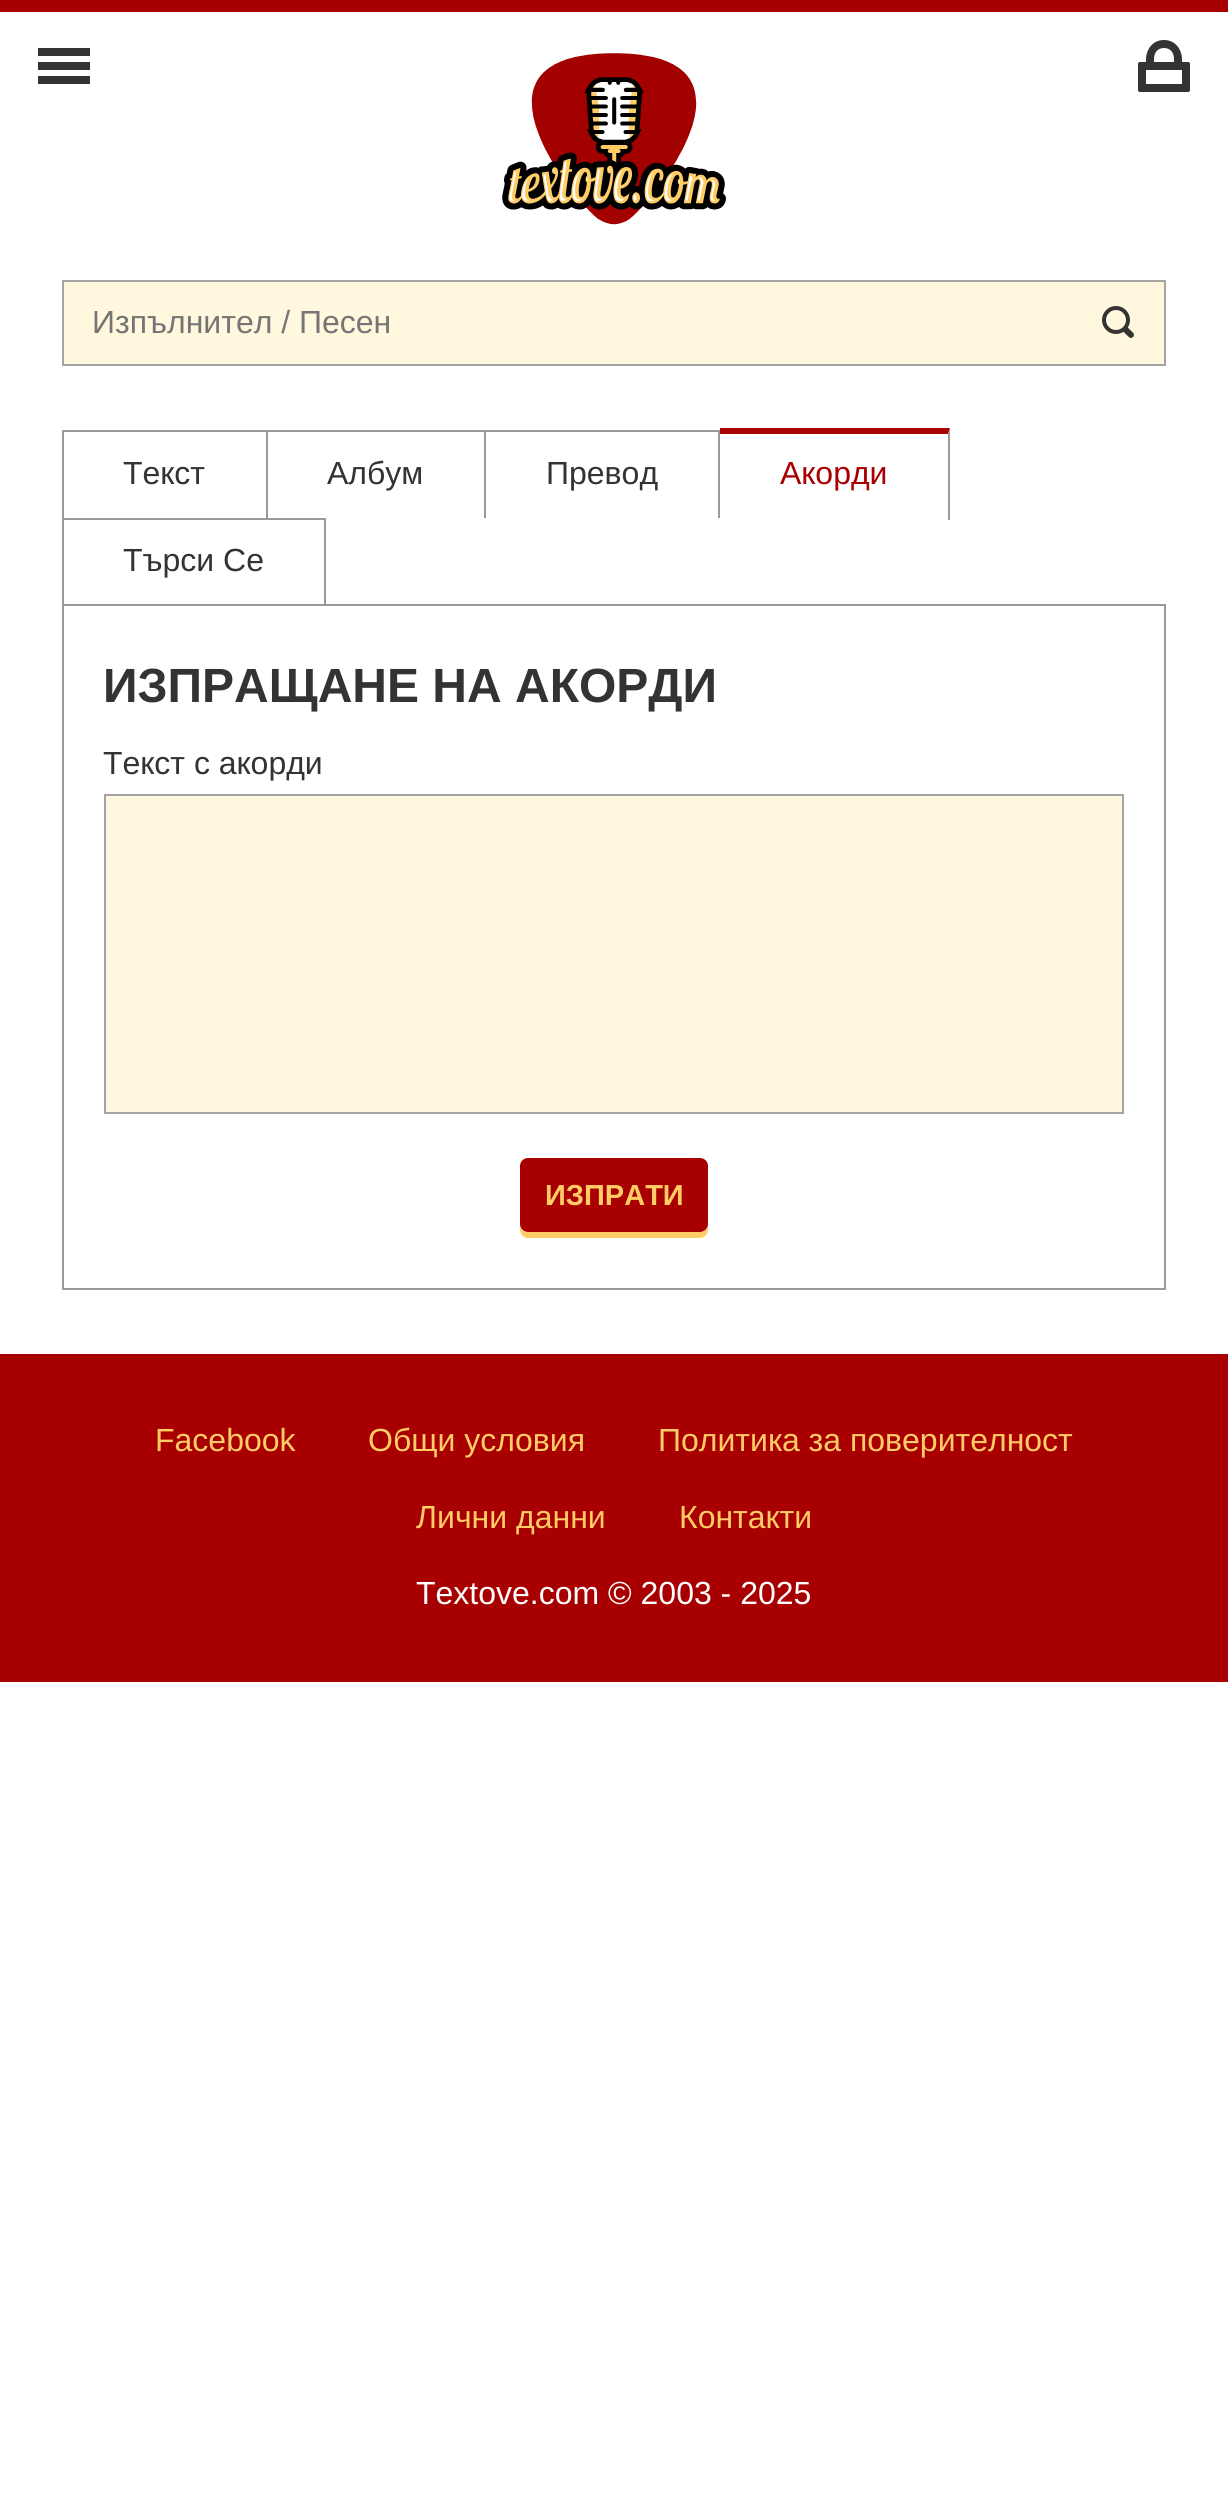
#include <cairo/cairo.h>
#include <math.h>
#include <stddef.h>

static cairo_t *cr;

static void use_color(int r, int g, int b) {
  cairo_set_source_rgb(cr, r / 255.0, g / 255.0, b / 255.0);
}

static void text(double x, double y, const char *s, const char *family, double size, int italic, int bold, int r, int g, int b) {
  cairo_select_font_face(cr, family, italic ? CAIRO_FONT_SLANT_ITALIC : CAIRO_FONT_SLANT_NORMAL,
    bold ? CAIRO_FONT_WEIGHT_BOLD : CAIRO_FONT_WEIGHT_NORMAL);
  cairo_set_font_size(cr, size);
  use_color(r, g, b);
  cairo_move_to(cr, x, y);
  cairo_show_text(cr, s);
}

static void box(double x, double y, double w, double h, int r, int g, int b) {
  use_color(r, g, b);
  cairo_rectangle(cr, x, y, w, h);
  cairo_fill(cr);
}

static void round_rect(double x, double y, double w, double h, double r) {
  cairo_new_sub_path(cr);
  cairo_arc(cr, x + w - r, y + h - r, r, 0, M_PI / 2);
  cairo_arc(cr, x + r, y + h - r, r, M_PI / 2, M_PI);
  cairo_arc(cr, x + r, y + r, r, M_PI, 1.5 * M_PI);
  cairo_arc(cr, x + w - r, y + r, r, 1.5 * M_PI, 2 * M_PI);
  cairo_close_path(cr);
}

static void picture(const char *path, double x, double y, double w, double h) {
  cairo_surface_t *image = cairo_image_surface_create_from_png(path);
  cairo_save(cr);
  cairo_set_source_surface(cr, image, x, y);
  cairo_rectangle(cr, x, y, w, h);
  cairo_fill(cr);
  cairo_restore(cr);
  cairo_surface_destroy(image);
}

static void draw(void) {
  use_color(255, 255, 255);
  cairo_paint(cr);
  box(0, 0, 1228, 12, 168, 0, 0);
  box(38, 62, 52, 8, 51, 51, 51);
  box(38, 48, 52, 8, 51, 51, 51);
  box(38, 76, 52, 8, 51, 51, 51);
  picture("img_01.png", 502, 53, 224, 172);
  picture("img_02.png", 1138, 40, 52, 52);
  use_color(255, 248, 223);
  cairo_rectangle(cr, 63, 281, 1102, 84);
  cairo_fill_preserve(cr);
  use_color(166, 164, 162);
  cairo_stroke(cr);
  picture("img_03.png", 1102, 306, 32, 32);
  box(62, 430, 2, 174, 153, 153, 153);
  box(64, 430, 656, 2, 153, 153, 153);
  box(266, 430, 2, 88, 153, 153, 153);
  box(484, 430, 2, 88, 153, 153, 153);
  box(718, 430, 2, 88, 153, 153, 153);
  use_color(168, 0, 0);
  cairo_new_path(cr);
  cairo_move_to(cr, 720, 428);
  cairo_line_to(cr, 950, 428);
  cairo_line_to(cr, 948, 434);
  cairo_line_to(cr, 720, 434);
  cairo_close_path(cr);
  cairo_fill(cr);
  use_color(153, 153, 153);
  cairo_new_path(cr);
  cairo_move_to(cr, 950, 428);
  cairo_line_to(cr, 950, 520);
  cairo_line_to(cr, 948, 520);
  cairo_line_to(cr, 948, 434);
  cairo_close_path(cr);
  cairo_fill(cr);
  box(64, 518, 262, 2, 153, 153, 153);
  box(324, 518, 2, 86, 153, 153, 153);
  cairo_rectangle(cr, 63, 605, 1102, 684);
  cairo_stroke(cr);
  use_color(255, 248, 223);
  cairo_rectangle(cr, 105, 795, 1018, 318);
  cairo_fill_preserve(cr);
  use_color(166, 164, 162);
  cairo_stroke(cr);
  use_color(255, 204, 102);
  cairo_new_path(cr);
  cairo_move_to(cr, 520, 1225);
  cairo_line_to(cr, 520, 1230);
  cairo_curve_to(cr, 520, 1234, 524, 1238, 528, 1238);
  cairo_line_to(cr, 700, 1238);
  cairo_curve_to(cr, 704, 1238, 708, 1234, 708, 1230);
  cairo_line_to(cr, 708, 1225);
  cairo_curve_to(cr, 708, 1229, 705, 1232, 701, 1232);
  cairo_line_to(cr, 527, 1232);
  cairo_curve_to(cr, 523, 1232, 520, 1229, 520, 1225);
  cairo_close_path(cr);
  cairo_fill(cr);
  use_color(168, 0, 0);
  round_rect(520, 1158, 188, 74, 8);
  cairo_fill(cr);
  box(0, 1354, 1228, 328, 168, 0, 0);
  text(92, 333, "Изпълнител / Песен", "Liberation Sans", 32, 0, 0, 117, 117, 117);
  text(123, 484, "Текст", "Liberation Sans", 32, 0, 0, 51, 51, 51);
  text(327, 484, "Албум", "Liberation Sans", 32, 0, 0, 51, 51, 51);
  text(546, 484, "Превод", "Liberation Sans", 32, 0, 0, 51, 51, 51);
  text(780, 484, "Акорди", "Liberation Sans", 32, 0, 0, 168, 0, 0);
  text(123, 571, "Търси Се", "Liberation Sans", 32, 0, 0, 51, 51, 51);
  text(103, 702, "ИЗПРАЩАНЕ НА АКОРДИ", "Liberation Sans", 48, 0, 1, 51, 51, 51);
  text(103, 774, "Текст с акорди", "Liberation Sans", 32, 0, 0, 51, 51, 51);
  text(545, 1205, "ИЗПРАТИ", "Liberation Sans", 29, 0, 1, 255, 204, 102);
  text(155, 1451, "Facebook", "Liberation Sans", 32, 0, 0, 255, 204, 102);
  text(368, 1451, "Общи условия", "Liberation Sans", 32, 0, 0, 255, 204, 102);
  text(658, 1451, "Политика за поверителност", "Liberation Sans", 32, 0, 0, 255, 204, 102);
  text(416, 1528, "Лични данни", "Liberation Sans", 32, 0, 0, 255, 204, 102);
  text(679, 1528, "Контакти", "Liberation Sans", 32, 0, 0, 255, 204, 102);
  text(416, 1604, "Textove.com © 2003 - 2025", "Liberation Sans", 32, 0, 0, 255, 255, 255);
}

int main(void) {
  cairo_surface_t *surface = cairo_image_surface_create(CAIRO_FORMAT_RGB24, 1228, 2513);
  cr = cairo_create(surface);
  cairo_font_options_t *options = cairo_font_options_create();
  cairo_font_options_set_hint_metrics(options, CAIRO_HINT_METRICS_OFF);
  cairo_font_options_set_hint_style(options, CAIRO_HINT_STYLE_NONE);
  cairo_set_font_options(cr, options);
  cairo_set_miter_limit(cr, 4);
  draw();
  cairo_surface_write_to_png(surface, "out.png");
  cairo_font_options_destroy(options);
  cairo_destroy(cr);
  cairo_surface_destroy(surface);
  return 0;
}
